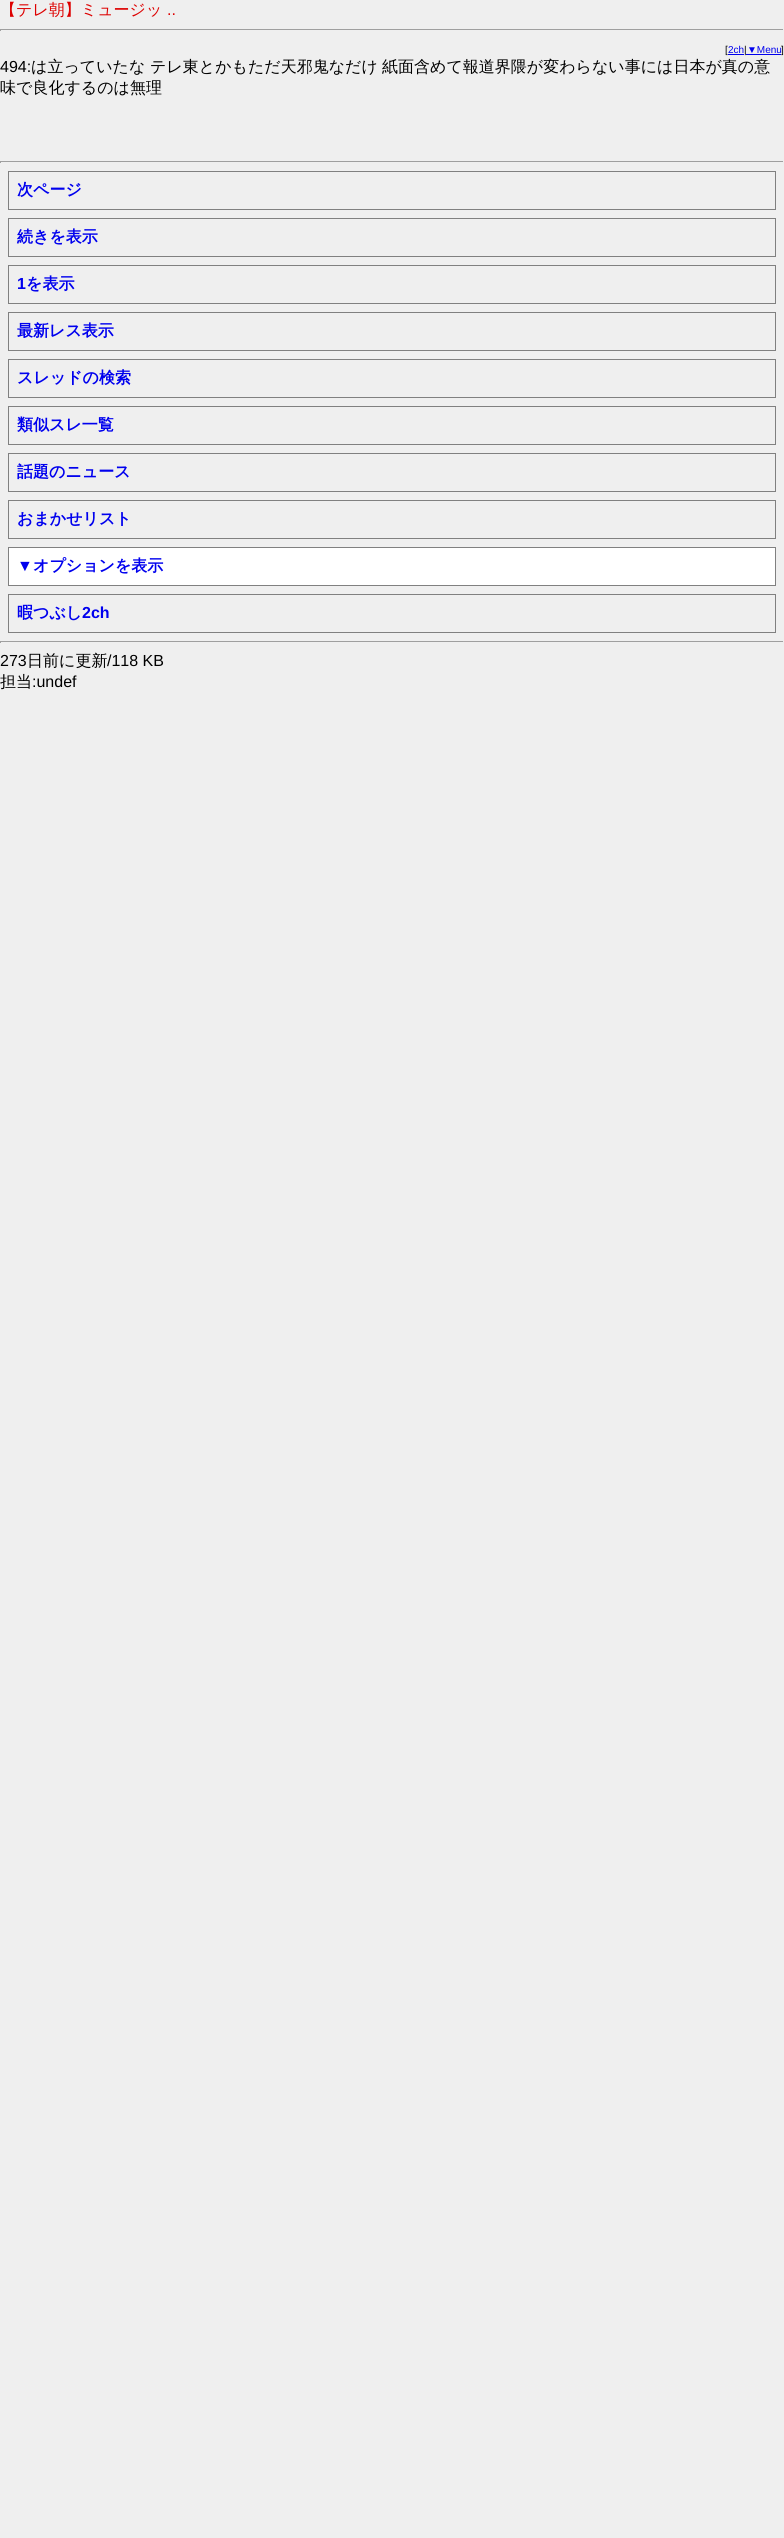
#include <cairo/cairo.h>
#include <math.h>
#include <stddef.h>

static cairo_t *cr;

static void use_color(int r, int g, int b) {
  cairo_set_source_rgb(cr, r / 255.0, g / 255.0, b / 255.0);
}

static void text(double x, double y, const char *s, const char *family, double size, int italic, int bold, int r, int g, int b) {
  cairo_select_font_face(cr, family, italic ? CAIRO_FONT_SLANT_ITALIC : CAIRO_FONT_SLANT_NORMAL,
    bold ? CAIRO_FONT_WEIGHT_BOLD : CAIRO_FONT_WEIGHT_NORMAL);
  cairo_set_font_size(cr, size);
  use_color(r, g, b);
  cairo_move_to(cr, x, y);
  cairo_show_text(cr, s);
}

static void box(double x, double y, double w, double h, int r, int g, int b) {
  use_color(r, g, b);
  cairo_rectangle(cr, x, y, w, h);
  cairo_fill(cr);
}

static void draw(void) {
  use_color(239, 239, 239);
  cairo_paint(cr);
  box(0, 29, 784, 1, 159, 159, 159);
  box(783, 29, 1, 2, 238, 238, 238);
  box(0, 29, 1, 2, 159, 159, 159);
  box(728, 54, 16, 1, 0, 0, 238);
  box(746, 54, 35, 1, 0, 0, 238);
  box(0, 161, 784, 1, 159, 159, 159);
  box(783, 161, 1, 2, 238, 238, 238);
  box(0, 161, 1, 2, 159, 159, 159);
  cairo_rectangle(cr, 8.5, 171.5, 767, 38);
  use_color(128, 128, 128);
  cairo_set_line_width(cr, 1);
  cairo_stroke(cr);
  cairo_rectangle(cr, 8.5, 218.5, 767, 38);
  cairo_stroke(cr);
  cairo_rectangle(cr, 8.5, 265.5, 767, 38);
  cairo_stroke(cr);
  cairo_rectangle(cr, 8.5, 312.5, 767, 38);
  cairo_stroke(cr);
  cairo_rectangle(cr, 8.5, 359.5, 767, 38);
  cairo_stroke(cr);
  cairo_rectangle(cr, 8.5, 406.5, 767, 38);
  cairo_stroke(cr);
  cairo_rectangle(cr, 8.5, 453.5, 767, 38);
  cairo_stroke(cr);
  cairo_rectangle(cr, 8.5, 500.5, 767, 38);
  cairo_stroke(cr);
  use_color(255, 255, 255);
  cairo_rectangle(cr, 8.5, 547.5, 767, 38);
  cairo_fill_preserve(cr);
  use_color(128, 128, 128);
  cairo_stroke(cr);
  cairo_rectangle(cr, 8.5, 594.5, 767, 38);
  cairo_stroke(cr);
  box(0, 641, 784, 1, 159, 159, 159);
  box(783, 641, 1, 2, 238, 238, 238);
  box(0, 641, 1, 2, 159, 159, 159);
  text(0, 15, "【テレ朝】ミュージッ", "WenQuanYi Zen Hei Medium", 16, 0, 0, 221, 0, 0);
  text(167, 15, "..", "Liberation Sans", 16, 0, 0, 221, 0, 0);
  text(725, 53, "[", "Liberation Sans", 10, 0, 0, 0, 0, 0);
  text(728, 53, "2ch ▼Menu", "Liberation Sans", 10, 0, 0, 0, 0, 238);
  text(744, 53, "|", "Liberation Sans", 10, 0, 0, 0, 0, 0);
  text(781, 53, "]", "Liberation Sans", 10, 0, 0, 0, 0, 0);
  text(0, 72, "494:", "Liberation Sans", 16, 0, 0, 0, 0, 0);
  text(31, 72, "は立っていたな", "WenQuanYi Zen Hei Medium", 16, 0, 0, 0, 0, 0);
  text(150, 72, "テレ東とかもただ天邪鬼なだけ", "WenQuanYi Zen Hei Medium", 16, 0, 0, 0, 0, 0);
  text(382, 72, "紙面含めて報道界隈が変わらない事には日本が真の意", "WenQuanYi Zen Hei Medium", 16, 0, 0, 0, 0, 0);
  text(0, 93, "味で良化するのは無理", "WenQuanYi Zen Hei Medium", 16, 0, 0, 0, 0, 0);
  text(17, 195, "次ページ", "WenQuanYi Zen Hei", 16, 0, 1, 0, 0, 238);
  text(17, 242, "続きを表示", "WenQuanYi Zen Hei", 16, 0, 1, 0, 0, 238);
  text(17, 289, "1", "Liberation Sans", 16, 0, 1, 0, 0, 238);
  text(26, 289, "を表示", "WenQuanYi Zen Hei", 16, 0, 1, 0, 0, 238);
  text(17, 336, "最新レス表示", "WenQuanYi Zen Hei", 16, 0, 1, 0, 0, 238);
  text(17, 383, "スレッドの検索", "WenQuanYi Zen Hei", 16, 0, 1, 0, 0, 238);
  text(17, 430, "類似スレ一覧", "WenQuanYi Zen Hei", 16, 0, 1, 0, 0, 238);
  text(17, 477, "話題のニュース", "WenQuanYi Zen Hei", 16, 0, 1, 0, 0, 238);
  text(17, 524, "おまかせリスト", "WenQuanYi Zen Hei", 16, 0, 1, 0, 0, 238);
  text(17, 571, "▼", "Liberation Sans", 16, 0, 1, 0, 0, 238);
  text(33, 571, "オプションを表示", "WenQuanYi Zen Hei", 16, 0, 1, 0, 0, 238);
  text(17, 618, "暇つぶし", "WenQuanYi Zen Hei", 16, 0, 1, 0, 0, 238);
  text(82, 618, "2ch", "Liberation Sans", 16, 0, 1, 0, 0, 238);
  text(0, 666, "273", "Liberation Sans", 16, 0, 0, 0, 0, 0);
  text(27, 666, "日前に更新", "WenQuanYi Zen Hei Medium", 16, 0, 0, 0, 0, 0);
  text(107, 666, "/118 KB", "Liberation Sans", 16, 0, 0, 0, 0, 0);
  text(0, 687, "担当", "WenQuanYi Zen Hei Medium", 16, 0, 0, 0, 0, 0);
  text(32, 687, ":undef", "Liberation Sans", 16, 0, 0, 0, 0, 0);
}

int main(void) {
  cairo_surface_t *surface = cairo_image_surface_create(CAIRO_FORMAT_RGB24, 784, 2538);
  cr = cairo_create(surface);
  cairo_font_options_t *options = cairo_font_options_create();
  cairo_font_options_set_hint_metrics(options, CAIRO_HINT_METRICS_OFF);
  cairo_font_options_set_hint_style(options, CAIRO_HINT_STYLE_NONE);
  cairo_set_font_options(cr, options);
  cairo_set_miter_limit(cr, 4);
  draw();
  cairo_surface_write_to_png(surface, "out.png");
  cairo_font_options_destroy(options);
  cairo_destroy(cr);
  cairo_surface_destroy(surface);
  return 0;
}
